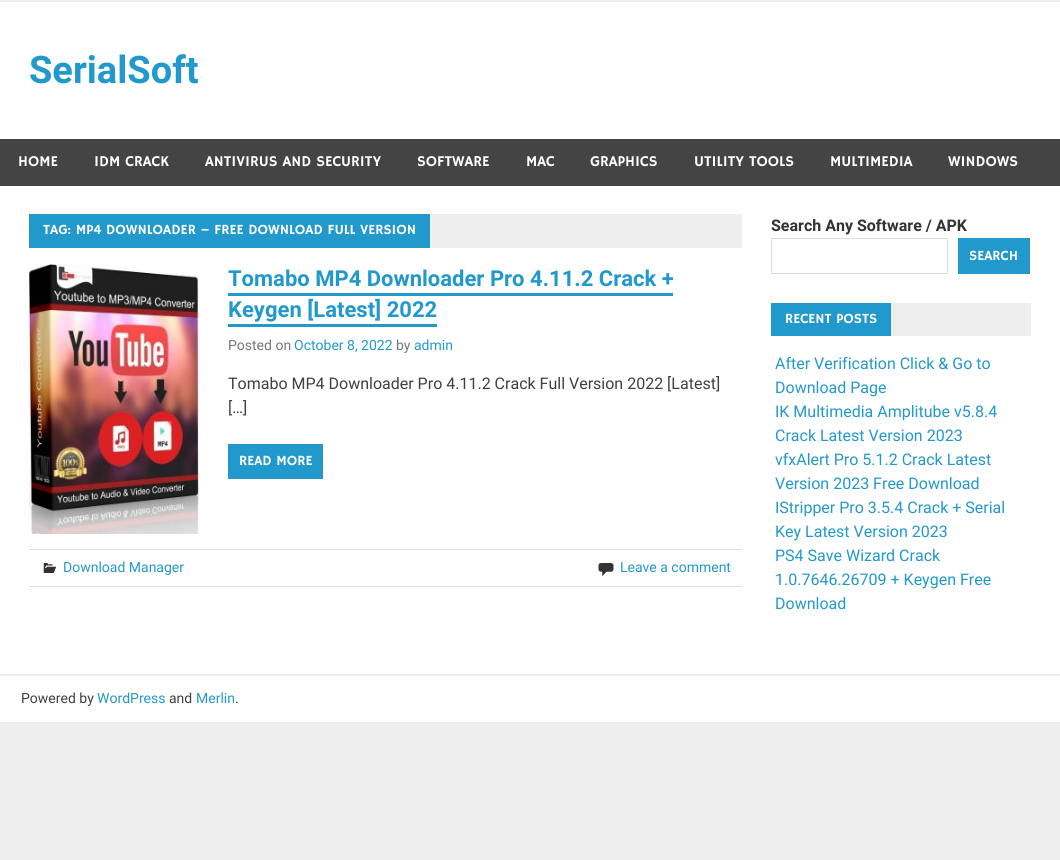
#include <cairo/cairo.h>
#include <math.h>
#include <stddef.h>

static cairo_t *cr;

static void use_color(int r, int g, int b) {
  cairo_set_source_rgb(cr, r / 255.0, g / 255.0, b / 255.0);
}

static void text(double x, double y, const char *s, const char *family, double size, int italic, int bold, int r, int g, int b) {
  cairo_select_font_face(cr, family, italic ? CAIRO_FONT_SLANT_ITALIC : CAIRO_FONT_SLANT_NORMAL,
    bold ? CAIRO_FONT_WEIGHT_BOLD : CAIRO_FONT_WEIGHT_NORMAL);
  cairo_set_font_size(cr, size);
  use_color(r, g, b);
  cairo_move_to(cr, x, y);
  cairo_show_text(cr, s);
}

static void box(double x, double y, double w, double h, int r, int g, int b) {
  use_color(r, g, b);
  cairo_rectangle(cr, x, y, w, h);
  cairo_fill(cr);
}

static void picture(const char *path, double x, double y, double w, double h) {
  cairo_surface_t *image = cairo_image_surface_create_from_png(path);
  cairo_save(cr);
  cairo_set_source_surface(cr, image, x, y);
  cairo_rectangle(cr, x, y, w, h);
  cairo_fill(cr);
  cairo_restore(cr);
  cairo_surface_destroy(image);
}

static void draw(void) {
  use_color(238, 238, 238);
  cairo_paint(cr);
  box(0, 2, 1060, 720, 255, 255, 255);
  box(0, 139, 1060, 47, 68, 68, 68);
  box(430, 214, 312, 34, 238, 238, 238);
  box(29, 214, 401, 34, 34, 153, 204);
  picture("img_01.png", 29, 264, 170, 270);
  box(228, 293, 445, 3, 34, 153, 204);
  box(228, 324, 209, 3, 34, 153, 204);
  box(228, 444, 95, 35, 34, 153, 204);
  box(29, 549, 713, 1, 221, 221, 221);
  box(29, 586, 713, 1, 221, 221, 221);
  picture("img_02.png", 43, 563, 14, 10);
  picture("img_03.png", 598, 563, 16, 13);
  cairo_rectangle(cr, 771.5, 238.5, 176, 35);
  cairo_set_line_width(cr, 1);
  cairo_stroke(cr);
  box(958, 238, 72, 36, 34, 153, 204);
  box(891, 303, 140, 33, 238, 238, 238);
  box(771, 303, 120, 33, 34, 153, 204);
  box(0, 674, 1060, 2, 238, 238, 238);
  text(29, 83, "SerialSoft", "Roboto", 38, 0, 1, 34, 153, 204);
  text(18, 166, "HOME", "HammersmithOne", 15, 0, 0, 255, 255, 255);
  text(94, 166, "IDM CRACK", "HammersmithOne", 15, 0, 0, 255, 255, 255);
  text(205, 166, "ANTIVIRUS AND SECURITY", "HammersmithOne", 15, 0, 0, 255, 255, 255);
  text(417, 166, "SOFTWARE", "HammersmithOne", 15, 0, 0, 255, 255, 255);
  text(526, 166, "MAC", "HammersmithOne", 15, 0, 0, 255, 255, 255);
  text(590, 166, "GRAPHICS", "HammersmithOne", 15, 0, 0, 255, 255, 255);
  text(694, 166, "UTILITY TOOLS", "HammersmithOne", 15, 0, 0, 255, 255, 255);
  text(830, 166, "MULTIMEDIA", "HammersmithOne", 15, 0, 0, 255, 255, 255);
  text(948, 166, "WINDOWS", "HammersmithOne", 15, 0, 0, 255, 255, 255);
  text(43, 234, "TAG: MP4 DOWNLOADER – FREE DOWNLOAD FULL VERSION", "HammersmithOne", 14, 0, 0, 255, 255, 255);
  text(228, 286, "Tomabo MP4 Downloader Pro 4.11.2 Crack +", "Roboto", 22, 0, 1, 34, 153, 204);
  text(228, 317, "Keygen [Latest] 2022", "Roboto", 22, 0, 1, 34, 153, 204);
  text(228, 350, "Posted on", "Roboto", 14, 0, 0, 119, 119, 119);
  text(294, 350, "October 8, 2022", "Roboto", 14, 0, 0, 34, 153, 204);
  text(396, 350, "by", "Roboto", 14, 0, 0, 119, 119, 119);
  text(414, 350, "admin", "Roboto", 14, 0, 0, 34, 153, 204);
  text(228, 389, "Tomabo MP4 Downloader Pro 4.11.2 Crack Full Version 2022 [Latest]", "Roboto", 16, 0, 0, 64, 64, 64);
  text(228, 413, "[…]", "Roboto", 16, 0, 0, 64, 64, 64);
  text(239, 465, "READ MORE", "HammersmithOne", 14, 0, 0, 255, 255, 255);
  text(63, 572, "Download Manager", "Roboto", 14, 0, 0, 34, 153, 204);
  text(620, 572, "Leave a comment", "Roboto", 14, 0, 0, 34, 153, 204);
  text(771, 231, "Search Any Software / APK", "Roboto", 16, 0, 1, 51, 51, 51);
  text(969, 260, "SEARCH", "HammersmithOne", 14, 0, 0, 255, 255, 255);
  text(785, 323, "RECENT POSTS", "HammersmithOne", 14, 0, 0, 255, 255, 255);
  text(775, 369, "After Verification Click & Go to", "Roboto", 16, 0, 0, 34, 153, 204);
  text(775, 393, "Download Page", "Roboto", 16, 0, 0, 34, 153, 204);
  text(775, 417, "IK Multimedia Amplitube v5.8.4", "Roboto", 16, 0, 0, 34, 153, 204);
  text(775, 441, "Crack Latest Version 2023", "Roboto", 16, 0, 0, 34, 153, 204);
  text(775, 465, "vfxAlert Pro 5.1.2 Crack Latest", "Roboto", 16, 0, 0, 34, 153, 204);
  text(775, 489, "Version 2023 Free Download", "Roboto", 16, 0, 0, 34, 153, 204);
  text(775, 513, "IStripper Pro 3.5.4 Crack + Serial", "Roboto", 16, 0, 0, 34, 153, 204);
  text(775, 537, "Key Latest Version 2023", "Roboto", 16, 0, 0, 34, 153, 204);
  text(775, 561, "PS4 Save Wizard Crack", "Roboto", 16, 0, 0, 34, 153, 204);
  text(775, 585, "1.0.7646.26709 + Keygen Free", "Roboto", 16, 0, 0, 34, 153, 204);
  text(775, 609, "Download", "Roboto", 16, 0, 0, 34, 153, 204);
  text(21, 703, "Powered by", "Roboto", 14, 0, 0, 64, 64, 64);
  text(97, 703, "WordPress", "Roboto", 14, 0, 0, 34, 153, 204);
  text(169, 703, "and", "Roboto", 14, 0, 0, 64, 64, 64);
  text(196, 703, "Merlin", "Roboto", 14, 0, 0, 34, 153, 204);
  text(235, 703, ".", "Roboto", 14, 0, 0, 64, 64, 64);
}

int main(void) {
  cairo_surface_t *surface = cairo_image_surface_create(CAIRO_FORMAT_RGB24, 1060, 860);
  cr = cairo_create(surface);
  cairo_font_options_t *options = cairo_font_options_create();
  cairo_font_options_set_hint_metrics(options, CAIRO_HINT_METRICS_OFF);
  cairo_font_options_set_hint_style(options, CAIRO_HINT_STYLE_NONE);
  cairo_set_font_options(cr, options);
  cairo_set_miter_limit(cr, 4);
  draw();
  cairo_surface_write_to_png(surface, "out.png");
  cairo_font_options_destroy(options);
  cairo_destroy(cr);
  cairo_surface_destroy(surface);
  return 0;
}
